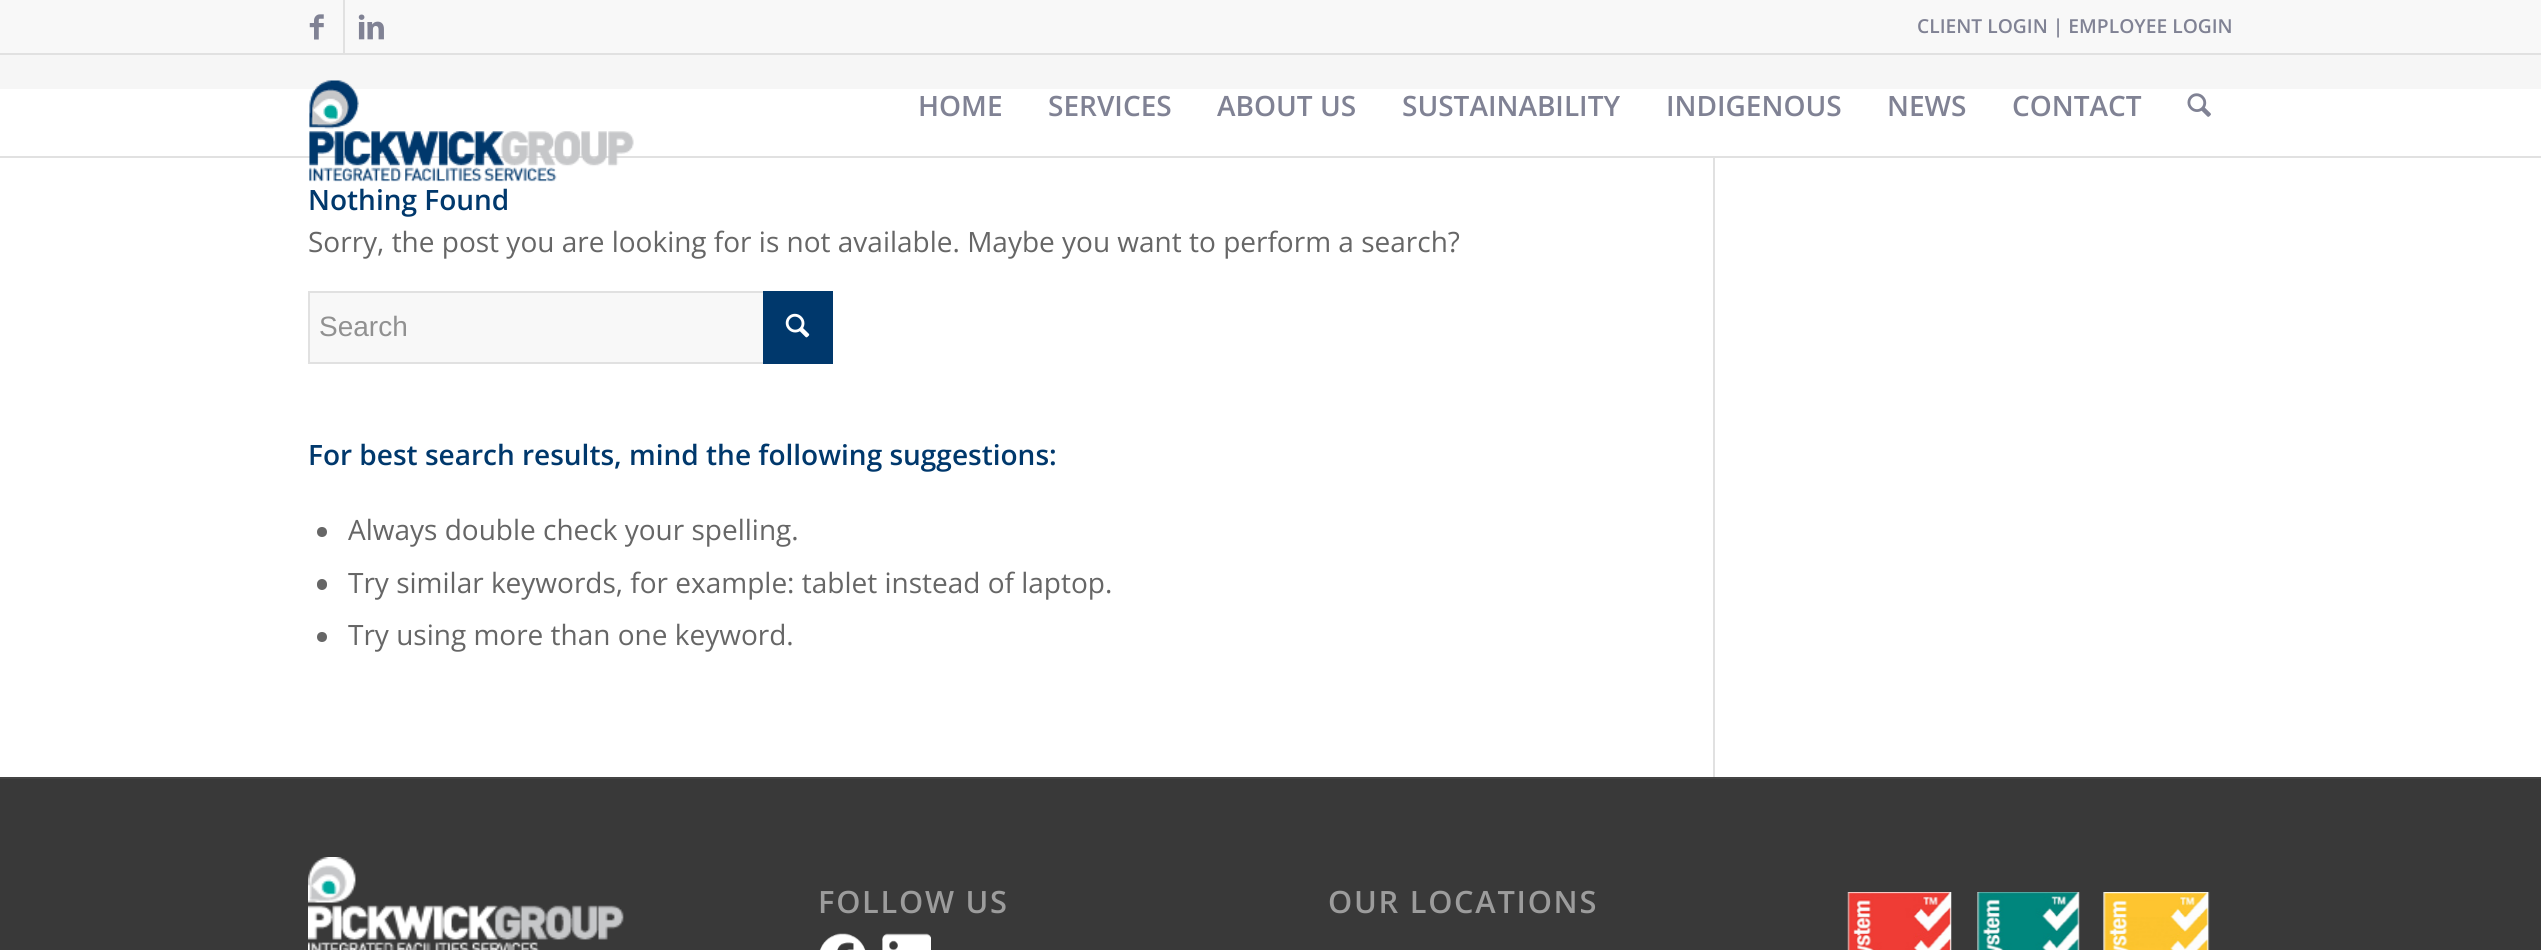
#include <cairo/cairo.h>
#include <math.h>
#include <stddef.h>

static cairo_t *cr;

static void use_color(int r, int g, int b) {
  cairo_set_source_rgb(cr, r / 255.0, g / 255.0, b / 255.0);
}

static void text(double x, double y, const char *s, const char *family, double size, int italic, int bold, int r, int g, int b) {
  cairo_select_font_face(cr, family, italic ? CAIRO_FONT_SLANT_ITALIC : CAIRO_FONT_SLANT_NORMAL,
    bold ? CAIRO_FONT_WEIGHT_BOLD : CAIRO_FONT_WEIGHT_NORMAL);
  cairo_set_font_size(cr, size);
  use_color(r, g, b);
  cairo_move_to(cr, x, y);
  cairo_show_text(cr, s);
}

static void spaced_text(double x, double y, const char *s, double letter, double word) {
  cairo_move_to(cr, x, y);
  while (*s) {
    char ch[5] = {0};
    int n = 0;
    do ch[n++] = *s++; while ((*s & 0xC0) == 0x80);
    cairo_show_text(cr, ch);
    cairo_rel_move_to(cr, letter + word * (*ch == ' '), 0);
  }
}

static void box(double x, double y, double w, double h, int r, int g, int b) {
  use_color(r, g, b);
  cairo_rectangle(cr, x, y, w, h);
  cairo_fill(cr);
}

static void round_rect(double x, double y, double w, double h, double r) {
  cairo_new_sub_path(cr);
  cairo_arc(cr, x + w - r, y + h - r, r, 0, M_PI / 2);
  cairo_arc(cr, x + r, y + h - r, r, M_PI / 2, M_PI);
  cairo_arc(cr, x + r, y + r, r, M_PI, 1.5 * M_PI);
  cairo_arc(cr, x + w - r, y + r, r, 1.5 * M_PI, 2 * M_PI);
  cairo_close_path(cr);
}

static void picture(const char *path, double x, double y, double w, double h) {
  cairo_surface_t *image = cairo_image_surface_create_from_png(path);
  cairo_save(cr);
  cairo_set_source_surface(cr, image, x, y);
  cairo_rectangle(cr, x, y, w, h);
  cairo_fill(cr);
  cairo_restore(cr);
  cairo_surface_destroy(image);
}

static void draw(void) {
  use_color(255, 255, 255);
  cairo_paint(cr);
  box(0, 0, 2541, 53, 248, 248, 248);
  box(0, 53, 2541, 2, 225, 225, 225);
  box(343, 0, 2, 53, 225, 225, 225);
  picture("img_01.png", 309, 14, 15, 26);
  picture("img_02.png", 358, 14, 26, 26);
  box(0, 156, 2541, 2, 225, 225, 225);
  box(0, 55, 2541, 34, 246, 246, 246);
  picture("img_03.png", 309, 80, 325, 102);
  picture("img_04.png", 2187, 93, 24, 24);
  box(1713, 158, 2, 619, 225, 225, 225);
  box(310, 293, 453, 69, 248, 248, 248);
  cairo_rectangle(cr, 309, 292, 523, 71);
  use_color(225, 225, 225);
  cairo_stroke(cr);
  box(763, 291, 70, 73, 0, 56, 108);
  picture("img_05.png", 785, 313, 25, 25);
  use_color(102, 102, 102);
  cairo_arc(cr, 322, 532, 5, 0, 2 * M_PI);
  cairo_fill(cr);
  round_rect(317, 579, 10, 11, 5);
  cairo_fill(cr);
  cairo_arc(cr, 322, 637, 5, 0, 2 * M_PI);
  cairo_fill(cr);
  box(0, 779, 2541, 171, 57, 57, 57);
  box(0, 777, 2541, 2, 68, 68, 68);
  picture("img_06.png", 308, 857, 316, 93);
  picture("img_07.png", 819, 933, 47, 17);
  picture("img_08.png", 882, 933, 49, 17);
  picture("img_09.png", 1847, 892, 105, 58);
  picture("img_10.png", 1977, 892, 103, 58);
  picture("img_11.png", 2103, 892, 107, 58);
  text(1917, 33, "CLIENT LOGIN | EMPLOYEE LOGIN", "Open Sans SemiBold", 19.25, 0, 0, 128, 130, 148);
  text(918, 116, "HOME", "Open Sans SemiBold", 28, 0, 0, 128, 130, 148);
  text(1048, 116, "SERVICES", "Open Sans SemiBold", 28, 0, 0, 128, 130, 148);
  text(1217, 116, "ABOUT US", "Open Sans SemiBold", 28, 0, 0, 128, 130, 148);
  text(1402, 116, "SUSTAINABILITY", "Open Sans SemiBold", 28, 0, 0, 128, 130, 148);
  text(1666, 116, "INDIGENOUS", "Open Sans SemiBold", 28, 0, 0, 128, 130, 148);
  text(1887, 116, "NEWS", "Open Sans SemiBold", 28, 0, 0, 128, 130, 148);
  text(2012, 116, "CONTACT", "Open Sans SemiBold", 28, 0, 0, 128, 130, 148);
  text(308, 210, "Nothing Found", "Open Sans SemiBold", 28, 0, 0, 0, 56, 108);
  text(308, 252, "Sorry, the post you are looking for is not available. Maybe you want to perform a search?", "Open Sans", 28, 0, 0, 102, 102, 102);
  text(319, 336, "Search", "Liberation Sans", 28, 0, 0, 145, 145, 145);
  text(308, 465, "For best search results, mind the following suggestions:", "Open Sans SemiBold", 28, 0, 0, 0, 56, 108);
  text(348, 540, "Always double check your spelling.", "Open Sans", 28, 0, 0, 102, 102, 102);
  text(348, 593, "Try similar keywords, for example: tablet instead of laptop.", "Open Sans", 28, 0, 0, 102, 102, 102);
  text(348, 645, "Try using more than one keyword.", "Open Sans", 28, 0, 0, 102, 102, 102);
  cairo_select_font_face(cr, "Open Sans SemiBold", CAIRO_FONT_SLANT_NORMAL, CAIRO_FONT_WEIGHT_NORMAL);
  cairo_set_font_size(cr, 30.75);
  use_color(156, 156, 156);
  spaced_text(818, 913, "FOLLOW US", 1.75, 0);
  spaced_text(1328, 913, "OUR LOCATIONS", 1.75, 0);
}

int main(void) {
  cairo_surface_t *surface = cairo_image_surface_create(CAIRO_FORMAT_RGB24, 2541, 950);
  cr = cairo_create(surface);
  cairo_font_options_t *options = cairo_font_options_create();
  cairo_font_options_set_hint_metrics(options, CAIRO_HINT_METRICS_OFF);
  cairo_font_options_set_hint_style(options, CAIRO_HINT_STYLE_NONE);
  cairo_set_font_options(cr, options);
  cairo_set_miter_limit(cr, 4);
  draw();
  cairo_surface_write_to_png(surface, "out.png");
  cairo_font_options_destroy(options);
  cairo_destroy(cr);
  cairo_surface_destroy(surface);
  return 0;
}
